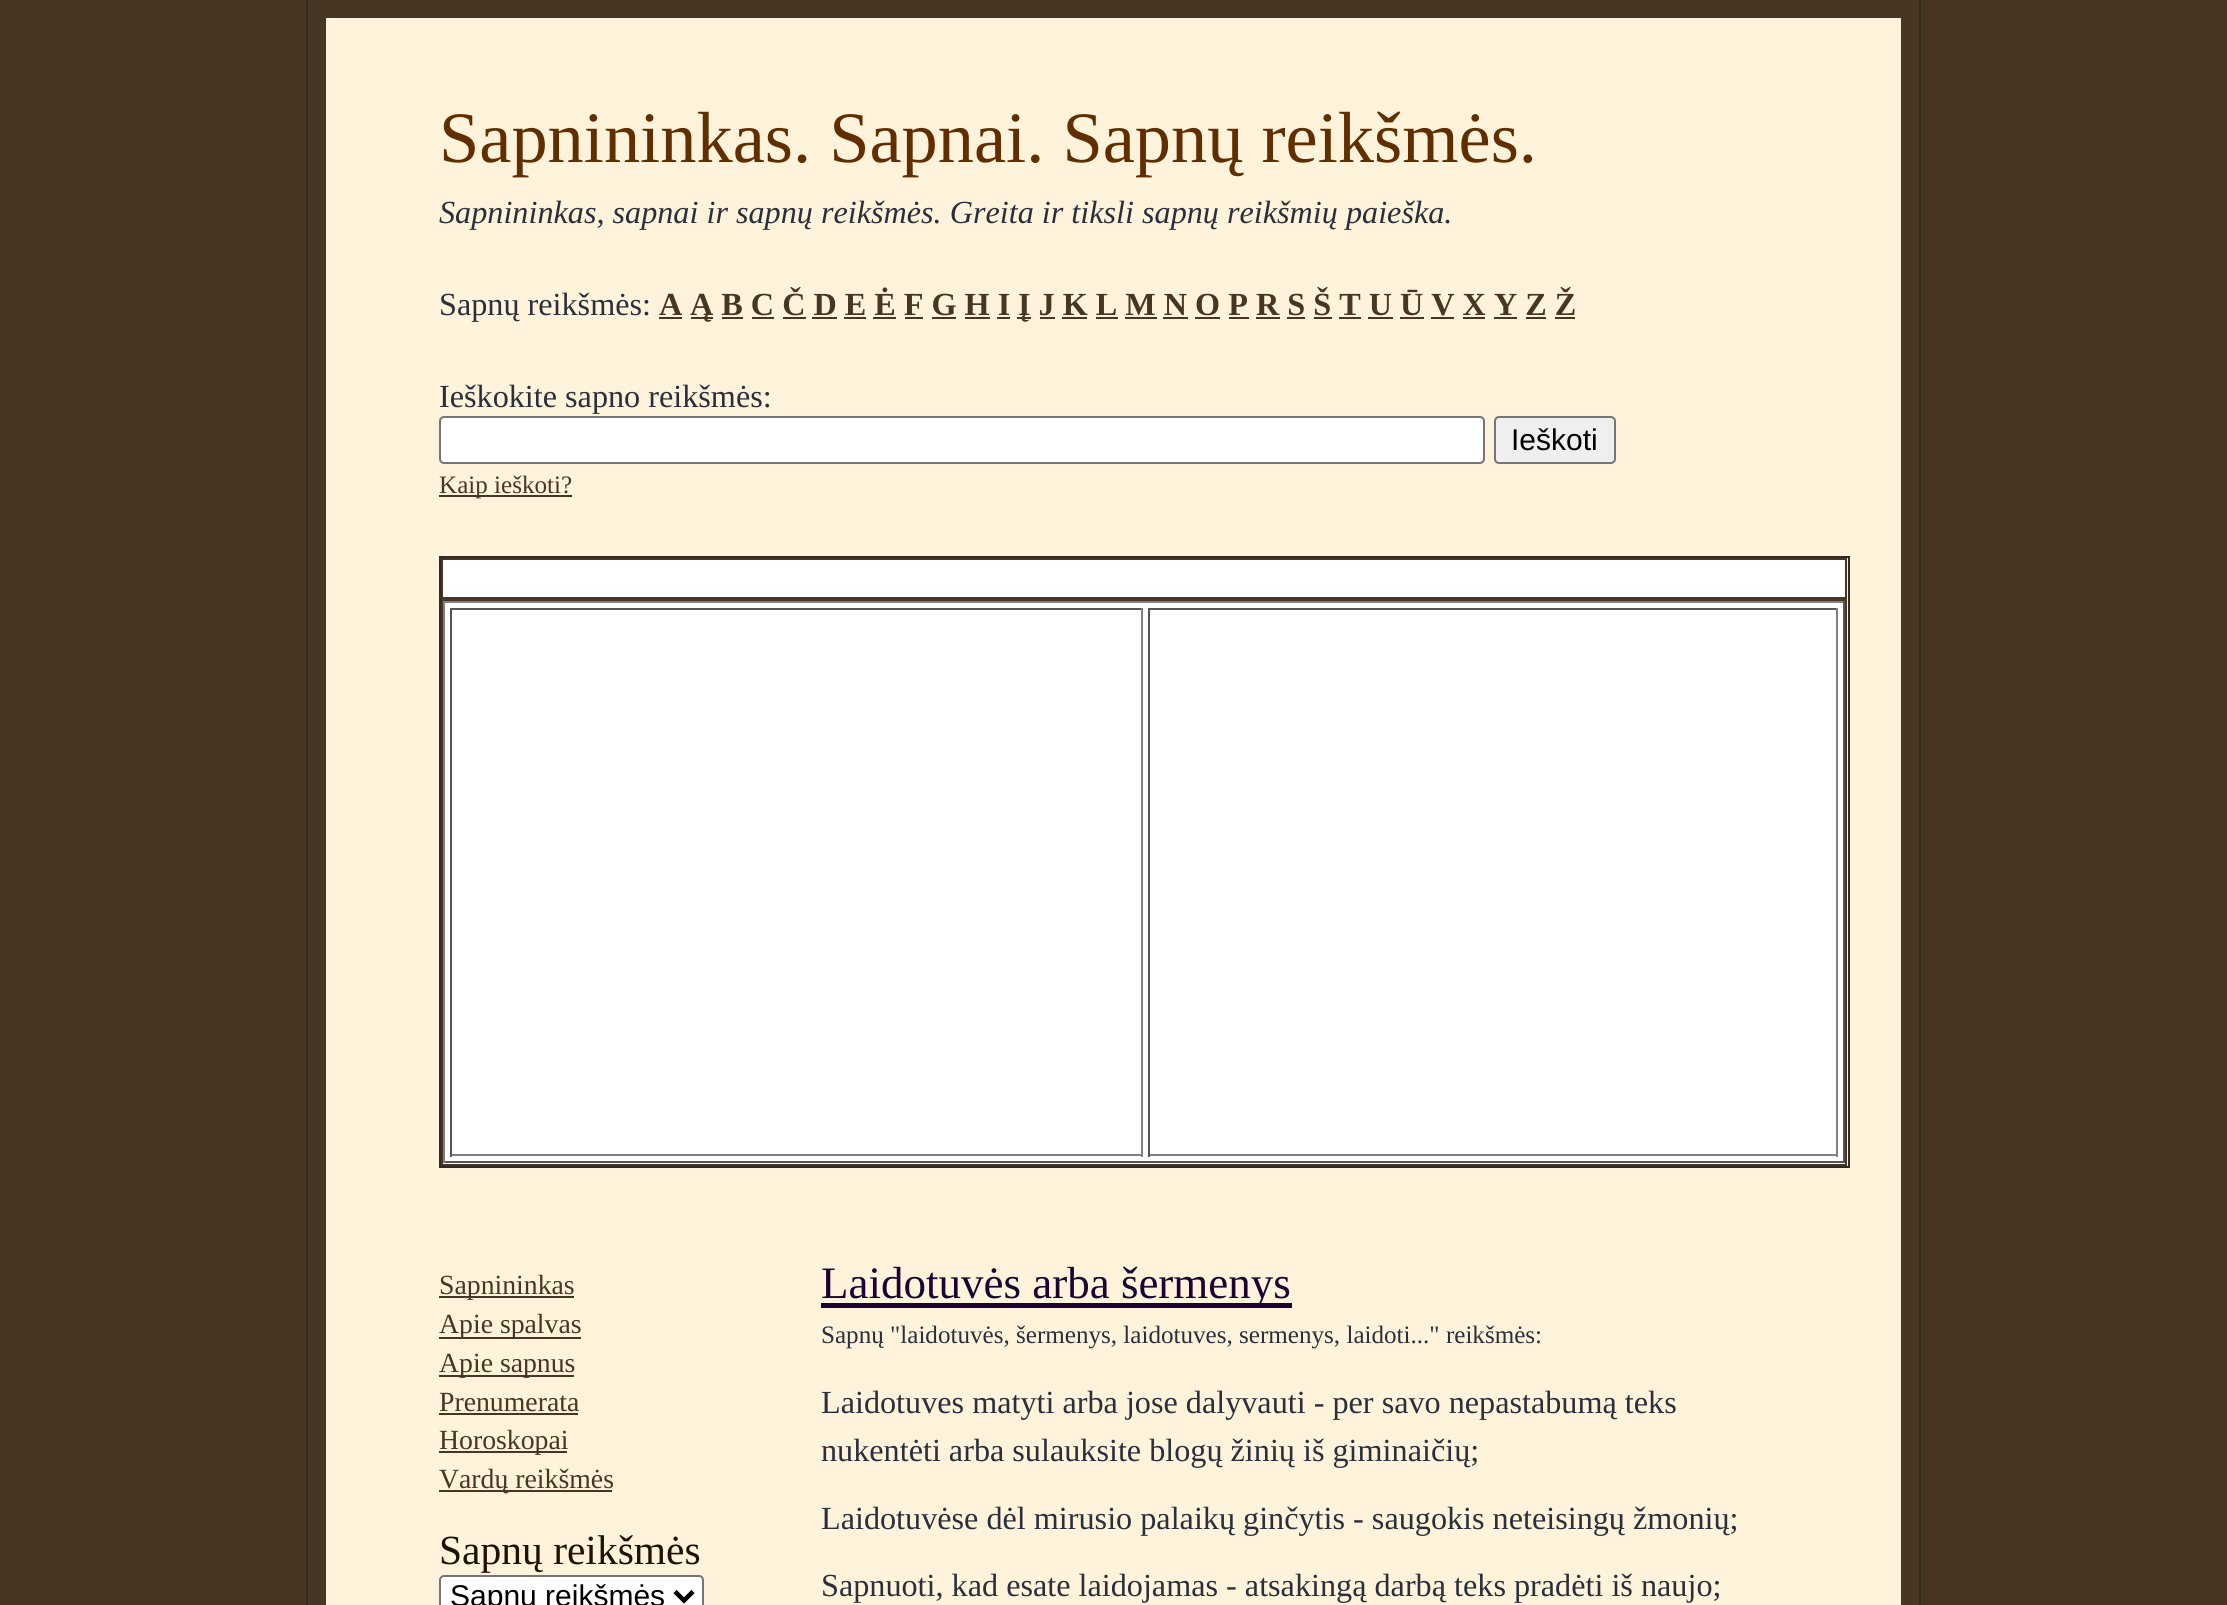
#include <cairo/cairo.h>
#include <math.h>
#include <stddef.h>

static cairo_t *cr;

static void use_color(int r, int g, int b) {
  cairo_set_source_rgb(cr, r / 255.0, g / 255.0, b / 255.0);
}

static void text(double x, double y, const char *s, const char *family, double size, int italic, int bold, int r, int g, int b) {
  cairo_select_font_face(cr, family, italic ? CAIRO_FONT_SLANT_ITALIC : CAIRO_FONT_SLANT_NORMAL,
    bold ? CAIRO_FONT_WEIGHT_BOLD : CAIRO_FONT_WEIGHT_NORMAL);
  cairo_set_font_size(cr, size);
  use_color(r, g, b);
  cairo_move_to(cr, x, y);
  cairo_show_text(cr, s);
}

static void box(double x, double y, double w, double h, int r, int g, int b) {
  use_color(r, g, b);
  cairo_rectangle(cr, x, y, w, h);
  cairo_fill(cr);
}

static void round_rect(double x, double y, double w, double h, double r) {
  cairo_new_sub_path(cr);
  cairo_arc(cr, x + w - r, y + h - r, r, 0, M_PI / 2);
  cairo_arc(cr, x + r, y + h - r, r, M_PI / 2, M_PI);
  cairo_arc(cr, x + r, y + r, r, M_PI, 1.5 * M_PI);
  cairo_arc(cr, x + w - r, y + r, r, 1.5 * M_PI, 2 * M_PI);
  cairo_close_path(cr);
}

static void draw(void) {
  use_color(72, 53, 33);
  cairo_paint(cr);
  box(308, 0, 1614, 1605, 71, 54, 36);
  box(1919, 0, 2, 1605, 51, 42, 36);
  box(306, 0, 2, 1605, 51, 42, 36);
  box(326, 18, 1575, 1587, 255, 243, 219);
  box(659, 317, 23, 2, 71, 54, 36);
  box(691, 317, 22, 2, 71, 54, 36);
  box(722, 317, 21, 2, 71, 54, 36);
  box(752, 317, 22, 2, 71, 54, 36);
  box(783, 317, 23, 2, 71, 54, 36);
  box(812, 317, 25, 2, 71, 54, 36);
  box(844, 317, 22, 2, 71, 54, 36);
  box(873, 317, 23, 2, 71, 54, 36);
  box(905, 317, 18, 2, 71, 54, 36);
  box(932, 317, 24, 2, 71, 54, 36);
  box(965, 317, 25, 2, 71, 54, 36);
  box(997, 317, 13, 2, 71, 54, 36);
  box(1017, 317, 14, 2, 71, 54, 36);
  box(1040, 317, 15, 2, 71, 54, 36);
  box(1062, 317, 25, 2, 71, 54, 36);
  box(1096, 317, 22, 2, 71, 54, 36);
  box(1125, 317, 32, 2, 71, 54, 36);
  box(1163, 317, 25, 2, 71, 54, 36);
  box(1195, 317, 25, 2, 71, 54, 36);
  box(1229, 317, 20, 2, 71, 54, 36);
  box(1256, 317, 24, 2, 71, 54, 36);
  box(1287, 317, 18, 2, 71, 54, 36);
  box(1314, 317, 18, 2, 71, 54, 36);
  box(1339, 317, 22, 2, 71, 54, 36);
  box(1368, 317, 25, 2, 71, 54, 36);
  box(1400, 317, 24, 2, 71, 54, 36);
  box(1431, 317, 23, 2, 71, 54, 36);
  box(1463, 317, 22, 2, 71, 54, 36);
  box(1494, 317, 23, 2, 71, 54, 36);
  box(1526, 317, 20, 2, 71, 54, 36);
  box(1555, 317, 20, 2, 71, 54, 36);
  use_color(255, 255, 255);
  round_rect(440, 417, 1044, 46, 4);
  cairo_fill_preserve(cr);
  use_color(118, 118, 118);
  cairo_stroke(cr);
  use_color(239, 239, 239);
  round_rect(1495, 417, 120, 46, 4);
  cairo_fill_preserve(cr);
  use_color(118, 118, 118);
  cairo_stroke(cr);
  box(439, 495, 133, 2, 71, 54, 36);
  cairo_rectangle(cr, 440, 557, 1409, 610);
  use_color(51, 42, 36);
  cairo_stroke(cr);
  use_color(255, 255, 255);
  cairo_rectangle(cr, 442, 559, 1404, 39);
  cairo_fill_preserve(cr);
  use_color(71, 54, 36);
  cairo_stroke(cr);
  box(443, 603, 1402, 561, 255, 255, 255);
  cairo_rectangle(cr, 442, 600, 1404, 565);
  use_color(71, 54, 36);
  cairo_stroke(cr);
  box(443, 601, 1402, 2, 128, 128, 128);
  box(1843, 601, 2, 562, 85, 85, 85);
  box(443, 1161, 1402, 2, 85, 85, 85);
  box(443, 601, 2, 562, 128, 128, 128);
  box(450, 608, 693, 2, 85, 85, 85);
  box(1141, 608, 2, 549, 128, 128, 128);
  box(450, 1154, 693, 2, 128, 128, 128);
  box(450, 608, 2, 549, 85, 85, 85);
  box(1148, 608, 690, 2, 85, 85, 85);
  box(1836, 608, 2, 549, 128, 128, 128);
  box(1148, 1154, 690, 2, 128, 128, 128);
  box(1148, 608, 2, 549, 85, 85, 85);
  box(439, 1296, 135, 2, 71, 54, 36);
  box(439, 1337, 142, 2, 71, 54, 36);
  box(439, 1375, 135, 2, 71, 54, 36);
  box(439, 1413, 139, 2, 71, 54, 36);
  box(439, 1451, 128, 2, 71, 54, 36);
  box(439, 1490, 173, 2, 71, 54, 36);
  use_color(255, 255, 255);
  round_rect(440, 1576, 263, 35, 4);
  cairo_fill_preserve(cr);
  use_color(118, 118, 118);
  cairo_stroke(cr);
  cairo_new_path(cr);
  cairo_move_to(cr, 675, 1591.5);
  cairo_line_to(cr, 684, 1600.5);
  cairo_line_to(cr, 693, 1591.5);
  use_color(0, 0, 0);
  cairo_set_line_width(cr, 4.5);
  cairo_stroke(cr);
  box(821, 1303, 471, 5, 27, 4, 49);
  text(439, 162, "Sapnininkas. Sapnai. Sapnų reikšmės.", "Liberation Serif", 72.4, 0, 0, 97, 46, 0);
  text(439, 223, "Sapnininkas, sapnai ir sapnų reikšmės. Greita ir tiksli sapnų reikšmių paieška.", "Liberation Serif", 32.2, 1, 0, 41, 48, 59);
  text(439, 315, "Sapnų reikšmės:", "Liberation Serif", 32.2, 0, 0, 41, 48, 59);
  text(659, 315, "A", "Liberation Serif", 32.2, 0, 1, 71, 54, 36);
  text(690, 315, "Ą B C Č D E Ė F G H I", "Liberation Serif", 32.2, 0, 1, 71, 54, 36);
  text(1018, 315, "Į J K L M N O P R S Š T U Ū V X Y Z Ž", "Liberation Serif", 32.2, 0, 1, 71, 54, 36);
  text(439, 407, "Ieškokite sapno reikšmės:", "Liberation Serif", 32.2, 0, 0, 41, 48, 59);
  text(1511, 450, "Ieškoti", "Liberation Sans", 30, 0, 0, 0, 0, 0);
  text(439, 493, "Kaip ieškoti?", "Liberation Serif", 25.1, 0, 0, 71, 54, 36);
  text(439, 1294, "Sapnininkas", "Liberation Serif", 27.75, 0, 0, 71, 54, 36);
  text(439, 1333, "Apie spalvas", "Liberation Serif", 27.75, 0, 0, 71, 54, 36);
  text(439, 1372, "Apie sapnus", "Liberation Serif", 27.75, 0, 0, 71, 54, 36);
  text(439, 1411, "Prenumerata", "Liberation Serif", 27.75, 0, 0, 71, 54, 36);
  text(439, 1449, "Horoskopai", "Liberation Serif", 27.75, 0, 0, 71, 54, 36);
  text(439, 1488, "Vardų reikšmės", "Liberation Serif", 27.75, 0, 0, 71, 54, 36);
  text(439, 1564, "Sapnų reikšmės", "Liberation Serif", 41.5, 0, 0, 33, 17, 4);
  text(450, 1606, "Sapnų reikšmės", "Liberation Sans", 30, 0, 0, 0, 0, 0);
  text(821, 1298, "Laidotuvės arba šermenys", "Liberation Serif", 45, 0, 0, 27, 4, 49);
  text(821, 1343, "Sapnų \"laidotuvės, šermenys, laidotuves, sermenys, laidoti...\" reikšmės:", "Liberation Serif", 25.1, 0, 0, 41, 48, 59);
  text(821, 1413, "Laidotuves matyti arba jose dalyvauti - per savo nepastabumą teks", "Liberation Serif", 32.2, 0, 0, 41, 48, 59);
  text(821, 1461, "nukentėti arba sulauksite blogų žinių iš giminaičių;", "Liberation Serif", 32.2, 0, 0, 41, 48, 59);
  text(821, 1529, "Laidotuvėse dėl mirusio palaikų ginčytis - saugokis neteisingų žmonių;", "Liberation Serif", 32.2, 0, 0, 41, 48, 59);
  text(821, 1596, "Sapnuoti, kad esate laidojamas - atsakingą darbą teks pradėti iš naujo;", "Liberation Serif", 32.2, 0, 0, 41, 48, 59);
}

int main(void) {
  cairo_surface_t *surface = cairo_image_surface_create(CAIRO_FORMAT_RGB24, 2227, 1605);
  cr = cairo_create(surface);
  cairo_font_options_t *options = cairo_font_options_create();
  cairo_font_options_set_hint_metrics(options, CAIRO_HINT_METRICS_OFF);
  cairo_font_options_set_hint_style(options, CAIRO_HINT_STYLE_NONE);
  cairo_set_font_options(cr, options);
  cairo_set_miter_limit(cr, 4);
  draw();
  cairo_surface_write_to_png(surface, "out.png");
  cairo_font_options_destroy(options);
  cairo_destroy(cr);
  cairo_surface_destroy(surface);
  return 0;
}
